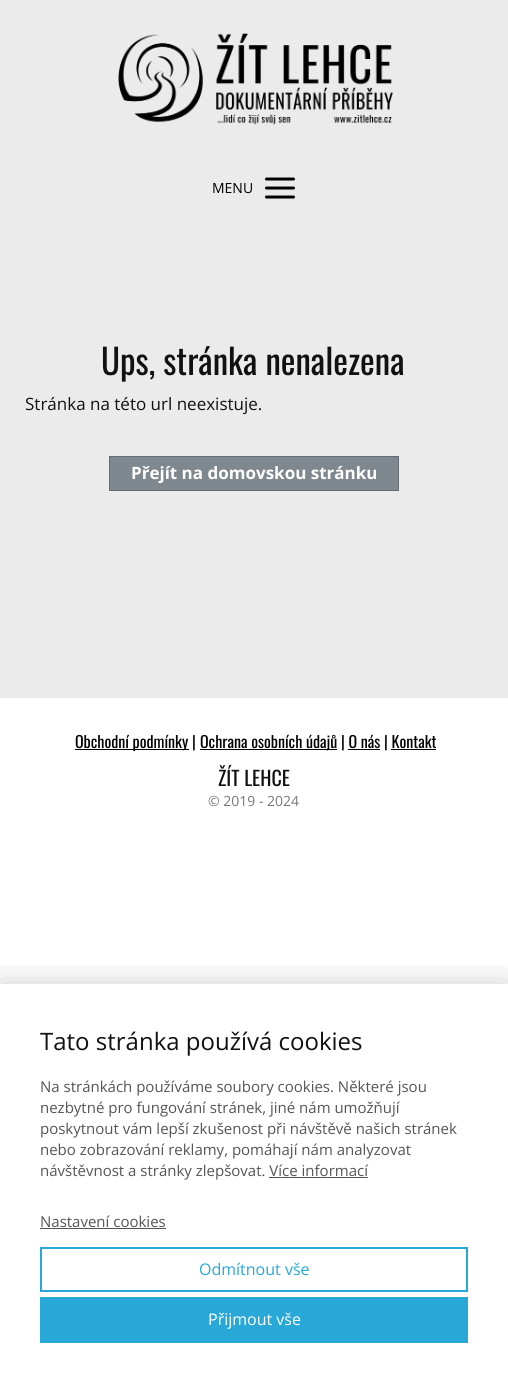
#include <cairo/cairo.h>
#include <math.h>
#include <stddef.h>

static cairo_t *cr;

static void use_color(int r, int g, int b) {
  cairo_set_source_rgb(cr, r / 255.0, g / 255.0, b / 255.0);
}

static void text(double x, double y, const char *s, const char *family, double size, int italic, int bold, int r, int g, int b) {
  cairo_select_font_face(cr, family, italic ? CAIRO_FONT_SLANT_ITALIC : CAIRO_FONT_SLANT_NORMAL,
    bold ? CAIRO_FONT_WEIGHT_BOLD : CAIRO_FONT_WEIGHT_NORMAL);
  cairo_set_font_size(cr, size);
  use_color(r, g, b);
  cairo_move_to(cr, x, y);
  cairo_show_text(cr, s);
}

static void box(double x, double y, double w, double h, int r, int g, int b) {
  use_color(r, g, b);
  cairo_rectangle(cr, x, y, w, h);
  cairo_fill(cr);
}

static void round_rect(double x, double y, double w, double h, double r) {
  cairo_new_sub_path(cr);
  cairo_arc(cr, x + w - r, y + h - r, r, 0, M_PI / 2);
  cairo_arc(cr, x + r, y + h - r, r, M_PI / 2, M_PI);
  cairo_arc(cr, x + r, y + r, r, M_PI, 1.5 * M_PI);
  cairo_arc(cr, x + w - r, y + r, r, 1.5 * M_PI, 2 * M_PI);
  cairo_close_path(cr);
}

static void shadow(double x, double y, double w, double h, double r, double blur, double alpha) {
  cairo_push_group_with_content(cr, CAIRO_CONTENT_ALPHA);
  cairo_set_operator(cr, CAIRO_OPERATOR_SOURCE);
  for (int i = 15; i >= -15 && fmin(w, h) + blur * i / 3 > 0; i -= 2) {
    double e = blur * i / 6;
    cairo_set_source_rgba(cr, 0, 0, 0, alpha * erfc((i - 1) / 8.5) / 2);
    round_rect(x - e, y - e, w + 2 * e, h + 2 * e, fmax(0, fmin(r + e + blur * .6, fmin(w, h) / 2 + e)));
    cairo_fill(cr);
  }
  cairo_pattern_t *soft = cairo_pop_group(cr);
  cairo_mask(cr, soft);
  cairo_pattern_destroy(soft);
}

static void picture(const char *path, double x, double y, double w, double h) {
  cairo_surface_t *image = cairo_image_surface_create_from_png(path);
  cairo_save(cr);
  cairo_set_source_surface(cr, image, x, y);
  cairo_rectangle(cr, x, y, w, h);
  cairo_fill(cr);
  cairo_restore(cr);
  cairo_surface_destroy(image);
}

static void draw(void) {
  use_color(255, 255, 255);
  cairo_paint(cr);
  box(0, 0, 508, 698, 235, 235, 235);
  picture("img_01.png", 118, 33, 275, 92);
  picture("img_02.png", 265, 177, 30, 22);
  use_color(127, 136, 143);
  cairo_rectangle(cr, 109.5, 456.5, 289, 34);
  cairo_fill_preserve(cr);
  use_color(102, 109, 114);
  cairo_set_line_width(cr, 1);
  cairo_stroke(cr);
  box(75, 749, 114, 1, 0, 0, 0);
  box(200, 749, 137, 1, 0, 0, 0);
  box(348, 749, 32, 1, 0, 0, 0);
  box(391, 749, 45, 1, 0, 0, 0);
  cairo_save(cr);
  cairo_rectangle(cr, 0, 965, 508, 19);
  cairo_clip(cr);
  use_color(0, 0, 0);
  shadow(0, 984, 508, 399, 0, 15, 0.2);
  cairo_restore(cr);
  box(269, 1177, 99, 1, 85, 85, 85);
  box(40, 1228, 126, 1, 85, 85, 85);
  cairo_rectangle(cr, 41, 1248, 426, 43);
  use_color(39, 168, 215);
  cairo_set_line_width(cr, 2);
  cairo_stroke(cr);
  box(40, 1297, 428, 46, 39, 168, 215);
  text(212, 193, "MENU", "Open Sans", 14, 0, 0, 0, 0, 0);
  text(101, 375, "Ups, stránka nenalezena", "Oswald", 35, 0, 0, 17, 17, 17);
  text(25, 410, "Stránka na této url neexistuje.", "Open Sans", 17, 0, 0, 17, 17, 17);
  text(131, 479, "Přejít na domovskou stránku", "Open Sans", 17, 0, 1, 255, 255, 255);
  text(75, 748, "Obchodní podmínky |", "Oswald", 16, 0, 0, 0, 0, 0);
  text(200, 748, "Ochrana osobních údajů | O nás | Kontakt", "Oswald", 16, 0, 0, 0, 0, 0);
  text(218, 786, "ŽÍT LEHCE", "Oswald", 20, 0, 0, 17, 17, 17);
  text(208, 806, "© 2019 - 2024", "Open Sans", 14, 0, 0, 120, 120, 120);
  text(40, 1050, "Tato stránka používá cookies", "Open Sans", 24, 0, 0, 17, 17, 17);
  text(40, 1092, "Na stránkách používáme soubory cookies. Některé jsou", "Open Sans", 15, 0, 0, 85, 85, 85);
  text(40, 1113, "nezbytné pro fungování stránek, jiné nám umožňují", "Open Sans", 15, 0, 0, 85, 85, 85);
  text(40, 1134, "poskytnout vám lepší zkušenost při návštěvě našich stránek", "Open Sans", 15, 0, 0, 85, 85, 85);
  text(40, 1155, "nebo zobrazování reklamy, pomáhají nám analyzovat", "Open Sans", 15, 0, 0, 85, 85, 85);
  text(40, 1176, "návštěvnost a stránky zlepšovat. Více informací", "Open Sans", 15, 0, 0, 85, 85, 85);
  text(40, 1227, "Nastavení cookies", "Open Sans", 15, 0, 0, 85, 85, 85);
  text(199, 1275, "Odmítnout vše", "Open Sans", 16, 0, 0, 39, 168, 215);
  text(208, 1325, "Přijmout vše", "Open Sans", 16, 0, 0, 255, 255, 255);
}

int main(void) {
  cairo_surface_t *surface = cairo_image_surface_create(CAIRO_FORMAT_RGB24, 508, 1383);
  cr = cairo_create(surface);
  cairo_font_options_t *options = cairo_font_options_create();
  cairo_font_options_set_hint_metrics(options, CAIRO_HINT_METRICS_OFF);
  cairo_font_options_set_hint_style(options, CAIRO_HINT_STYLE_NONE);
  cairo_set_font_options(cr, options);
  cairo_set_miter_limit(cr, 4);
  draw();
  cairo_surface_write_to_png(surface, "out.png");
  cairo_font_options_destroy(options);
  cairo_destroy(cr);
  cairo_surface_destroy(surface);
  return 0;
}
